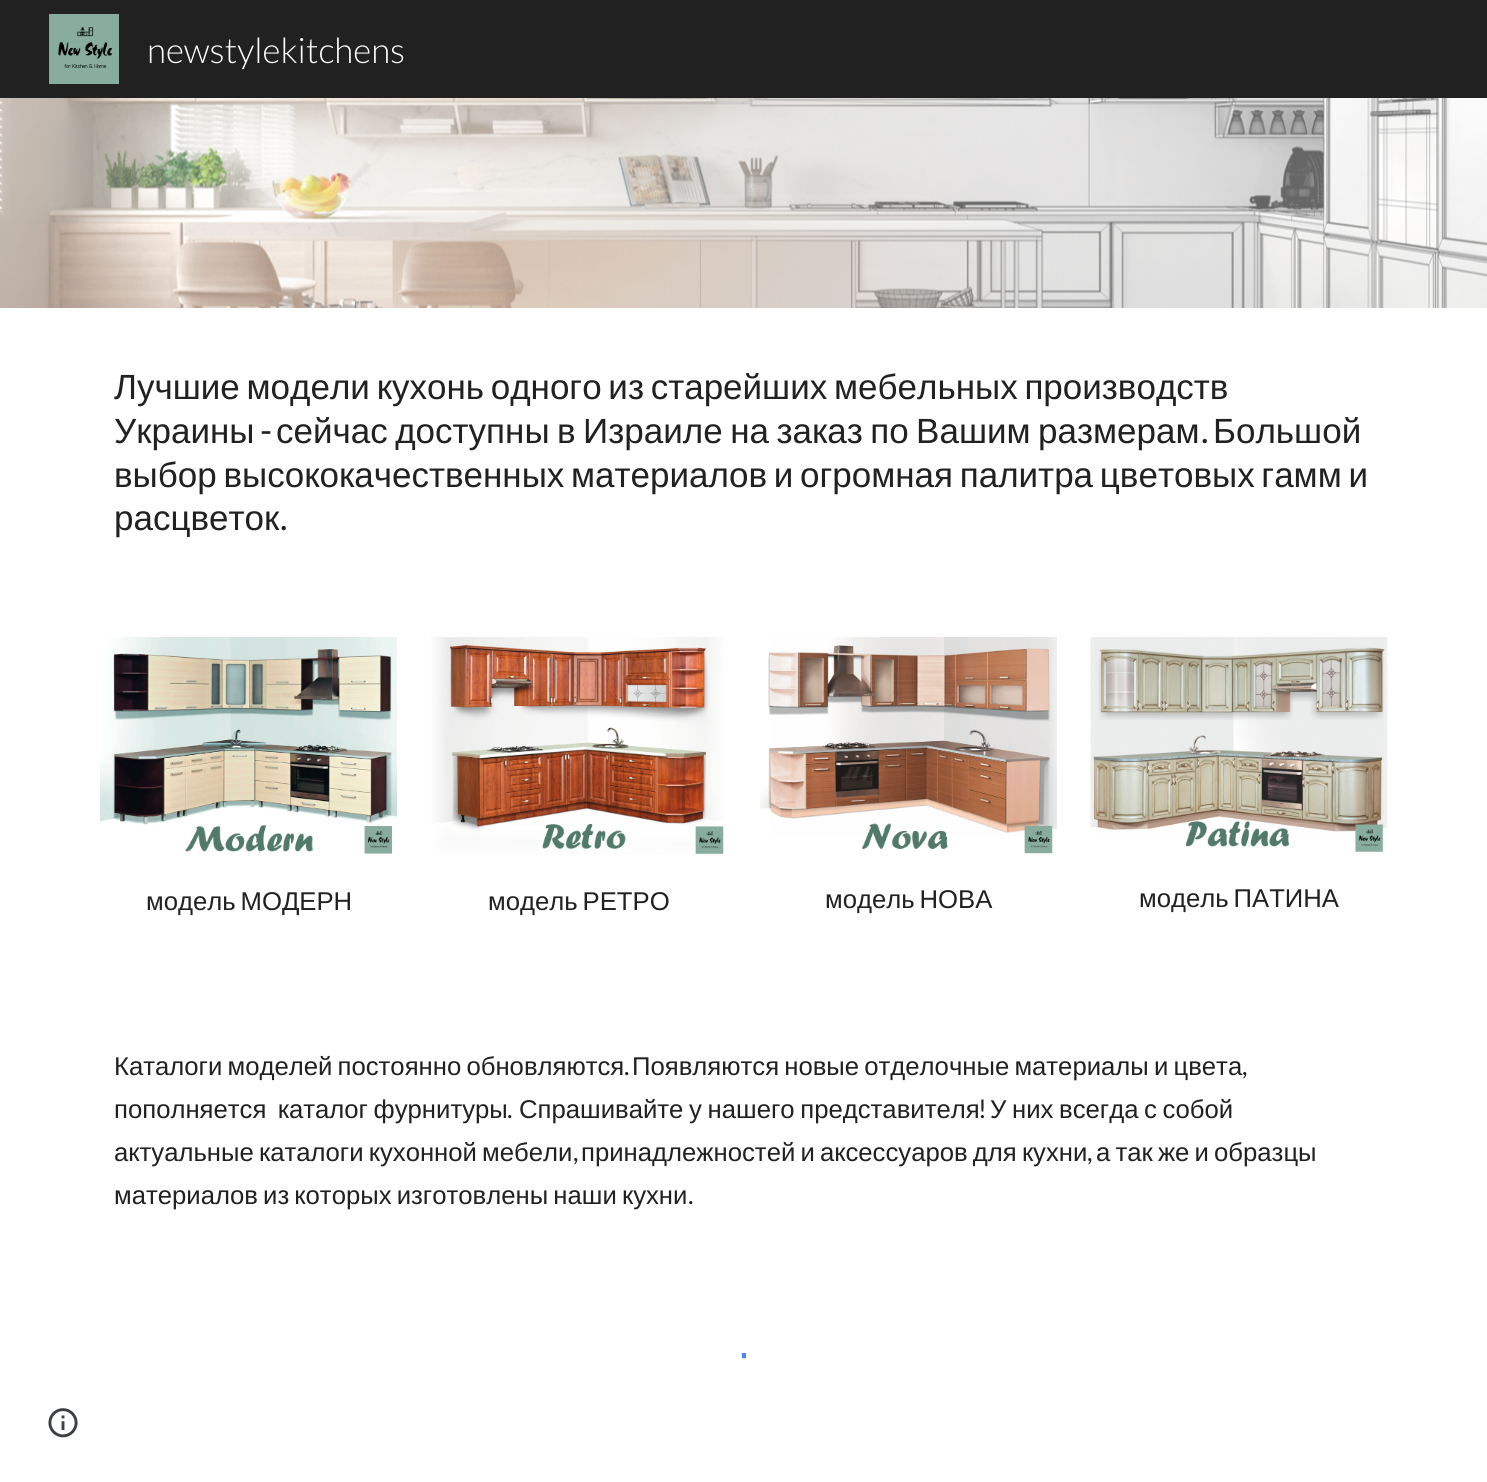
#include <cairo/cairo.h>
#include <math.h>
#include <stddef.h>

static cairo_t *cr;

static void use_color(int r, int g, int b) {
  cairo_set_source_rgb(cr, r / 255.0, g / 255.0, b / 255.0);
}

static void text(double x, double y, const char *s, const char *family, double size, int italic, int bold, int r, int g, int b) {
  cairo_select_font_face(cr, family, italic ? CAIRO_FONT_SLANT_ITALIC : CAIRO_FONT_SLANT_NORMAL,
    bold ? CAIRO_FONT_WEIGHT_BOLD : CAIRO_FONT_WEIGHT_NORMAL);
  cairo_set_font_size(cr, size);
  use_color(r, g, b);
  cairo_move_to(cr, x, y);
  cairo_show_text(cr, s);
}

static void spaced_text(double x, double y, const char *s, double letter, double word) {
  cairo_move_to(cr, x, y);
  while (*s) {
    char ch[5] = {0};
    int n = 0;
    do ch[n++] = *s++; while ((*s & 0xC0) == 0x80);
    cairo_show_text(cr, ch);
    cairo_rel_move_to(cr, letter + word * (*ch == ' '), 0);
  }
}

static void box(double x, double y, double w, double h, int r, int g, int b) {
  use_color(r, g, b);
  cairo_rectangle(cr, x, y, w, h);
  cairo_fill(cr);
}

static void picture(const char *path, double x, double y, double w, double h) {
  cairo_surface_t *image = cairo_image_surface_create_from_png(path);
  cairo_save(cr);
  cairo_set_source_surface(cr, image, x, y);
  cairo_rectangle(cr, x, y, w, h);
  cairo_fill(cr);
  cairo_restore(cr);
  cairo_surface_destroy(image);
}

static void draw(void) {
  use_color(255, 255, 255);
  cairo_paint(cr);
  box(0, 0, 1487, 98, 33, 33, 33);
  picture("img_01.png", 49, 14, 70, 70);
  picture("img_02.png", 0, 98, 1487, 210);
  picture("img_03.png", 100, 637, 297, 217);
  picture("img_04.png", 431, 637, 293, 218);
  picture("img_05.png", 760, 637, 297, 217);
  picture("img_06.png", 1090, 637, 298, 215);
  cairo_save(cr);
  cairo_rectangle(cr, 719, 1353, 25, 49);
  cairo_clip(cr);
  cairo_new_path(cr);
  cairo_move_to(cr, 742, 1355.5);
  cairo_curve_to(cr, 770.5, 1353, 774.5, 1396.5, 745.5, 1399);
  use_color(68, 134, 244);
  cairo_set_line_width(cr, 5.2);
  cairo_stroke(cr);
  cairo_restore(cr);
  cairo_save(cr);
  cairo_rectangle(cr, 742, 1353, 4, 49);
  cairo_clip(cr);
  cairo_new_path(cr);
  cairo_move_to(cr, 728.5, 1392.5);
  cairo_curve_to(cr, 723, 1387.5, 721, 1380, 722.5, 1373);
  cairo_curve_to(cr, 727.5, 1347.5, 765.5, 1351, 765.5, 1377);
  cairo_curve_to(cr, 765.5, 1383, 763.5, 1388.5, 759, 1392.5);
  use_color(68, 134, 244);
  cairo_set_line_width(cr, 5.2);
  cairo_stroke(cr);
  cairo_restore(cr);
  cairo_save(cr);
  cairo_rectangle(cr, 744, 1353, 24, 49);
  cairo_clip(cr);
  cairo_new_path(cr);
  cairo_move_to(cr, 742, 1399);
  cairo_curve_to(cr, 713, 1396.5, 717, 1353, 745.5, 1355.5);
  use_color(68, 134, 244);
  cairo_set_line_width(cr, 5.2);
  cairo_stroke(cr);
  cairo_restore(cr);
  cairo_save(cr);
  cairo_rectangle(cr, 719, 1353, 25, 49);
  cairo_clip(cr);
  cairo_new_path(cr);
  cairo_move_to(cr, 742, 1355.5);
  cairo_curve_to(cr, 770.5, 1353, 774.5, 1396.5, 745.5, 1399);
  cairo_move_to(cr, 742, 1355.5);
  cairo_curve_to(cr, 770.5, 1353, 774.5, 1396.5, 745.5, 1399);
  cairo_move_to(cr, 742, 1355.5);
  cairo_curve_to(cr, 770.5, 1353, 774.5, 1396.5, 745.5, 1399);
  use_color(68, 134, 244);
  cairo_set_line_width(cr, 5.2);
  cairo_stroke(cr);
  cairo_restore(cr);
  picture("img_07.png", 48, 1408, 30, 30);
  text(147, 63, "newstylekitchens", "Lato Light", 35, 0, 0, 255, 255, 255);
  cairo_select_font_face(cr, "Liberation Sans", CAIRO_FONT_SLANT_NORMAL, CAIRO_FONT_WEIGHT_NORMAL);
  use_color(33, 33, 33);
  spaced_text(114, 399, "Лучшие модели кухонь одного из старейших мебельных производств", 0, -3);
  text(114, 443, "Украины", "Liberation Sans", 35, 0, 0, 33, 33, 33);
  text(260, 443, "-", "Lato", 35, 0, 0, 33, 33, 33);
  cairo_select_font_face(cr, "Liberation Sans", CAIRO_FONT_SLANT_NORMAL, CAIRO_FONT_WEIGHT_NORMAL);
  spaced_text(276, 443, "сейчас доступны в Израиле на заказ по Вашим размерам", 0, -2.25);
  text(1213, 443, "Большой", "Liberation Sans", 35, 0, 0, 33, 33, 33);
  text(1201, 443, ".", "Lato", 35, 0, 0, 33, 33, 33);
  cairo_select_font_face(cr, "Liberation Sans", CAIRO_FONT_SLANT_NORMAL, CAIRO_FONT_WEIGHT_NORMAL);
  spaced_text(114, 487, "выбор высококачественных материалов и огромная палитра цветовых гамм и", 0, -3);
  text(114, 530, "расцветок", "Liberation Sans", 35, 0, 0, 33, 33, 33);
  text(280, 530, ".", "Lato", 35, 0, 0, 33, 33, 33);
  cairo_select_font_face(cr, "Liberation Sans", CAIRO_FONT_SLANT_NORMAL, CAIRO_FONT_WEIGHT_NORMAL);
  cairo_set_font_size(cr, 25.7);
  spaced_text(146, 910, "модель МОДЕРН", 0, -2.25);
  spaced_text(488, 910, "модель РЕТРО", 0, -2.25);
  spaced_text(825, 908, "модель НОВА", 0, -2.25);
  spaced_text(1139, 907, "модель ПАТИНА", 0, -2.25);
  spaced_text(114, 1075, "Каталоги моделей постоянно обновляются", 0, -2);
  text(624, 1075, ".", "Lato", 25.7, 0, 0, 33, 33, 33);
  cairo_select_font_face(cr, "Liberation Sans", CAIRO_FONT_SLANT_NORMAL, CAIRO_FONT_WEIGHT_NORMAL);
  spaced_text(632, 1075, "Появляются новые отделочные материалы и цвета", 0, -2);
  text(1242, 1075, ",", "Lato", 25.7, 0, 0, 33, 33, 33);
  cairo_select_font_face(cr, "Liberation Sans", CAIRO_FONT_SLANT_NORMAL, CAIRO_FONT_WEIGHT_NORMAL);
  spaced_text(114, 1118, "пополняется  каталог фурнитуры", 0, -1.5);
  text(507, 1118, ".", "Lato", 25.7, 0, 0, 33, 33, 33);
  cairo_select_font_face(cr, "Liberation Sans", CAIRO_FONT_SLANT_NORMAL, CAIRO_FONT_WEIGHT_NORMAL);
  spaced_text(519, 1118, "Спрашивайте у нашего представителя", 0, -1.5);
  text(978, 1118, "!", "Lato", 25.7, 0, 0, 33, 33, 33);
  cairo_select_font_face(cr, "Liberation Sans", CAIRO_FONT_SLANT_NORMAL, CAIRO_FONT_WEIGHT_NORMAL);
  spaced_text(990, 1118, "У них всегда с собой", 0, -1.5);
  spaced_text(114, 1161, "актуальные каталоги кухонной мебели", 0, -2);
  text(573, 1161, ",", "Lato", 25.7, 0, 0, 33, 33, 33);
  cairo_select_font_face(cr, "Liberation Sans", CAIRO_FONT_SLANT_NORMAL, CAIRO_FONT_WEIGHT_NORMAL);
  spaced_text(581, 1161, "принадлежностей и аксессуаров для кухни", 0, -2);
  text(1087, 1161, ",", "Lato", 25.7, 0, 0, 33, 33, 33);
  cairo_select_font_face(cr, "Liberation Sans", CAIRO_FONT_SLANT_NORMAL, CAIRO_FONT_WEIGHT_NORMAL);
  spaced_text(1096, 1161, "а так же и образцы", 0, -2);
  spaced_text(114, 1204, "материалов из которых изготовлены наши кухни", 0, -2);
  text(688, 1204, ".", "Lato", 25.7, 0, 0, 33, 33, 33);
}

int main(void) {
  cairo_surface_t *surface = cairo_image_surface_create(CAIRO_FORMAT_RGB24, 1487, 1482);
  cr = cairo_create(surface);
  cairo_font_options_t *options = cairo_font_options_create();
  cairo_font_options_set_hint_metrics(options, CAIRO_HINT_METRICS_OFF);
  cairo_font_options_set_hint_style(options, CAIRO_HINT_STYLE_NONE);
  cairo_set_font_options(cr, options);
  cairo_set_miter_limit(cr, 4);
  draw();
  cairo_surface_write_to_png(surface, "out.png");
  cairo_font_options_destroy(options);
  cairo_destroy(cr);
  cairo_surface_destroy(surface);
  return 0;
}
